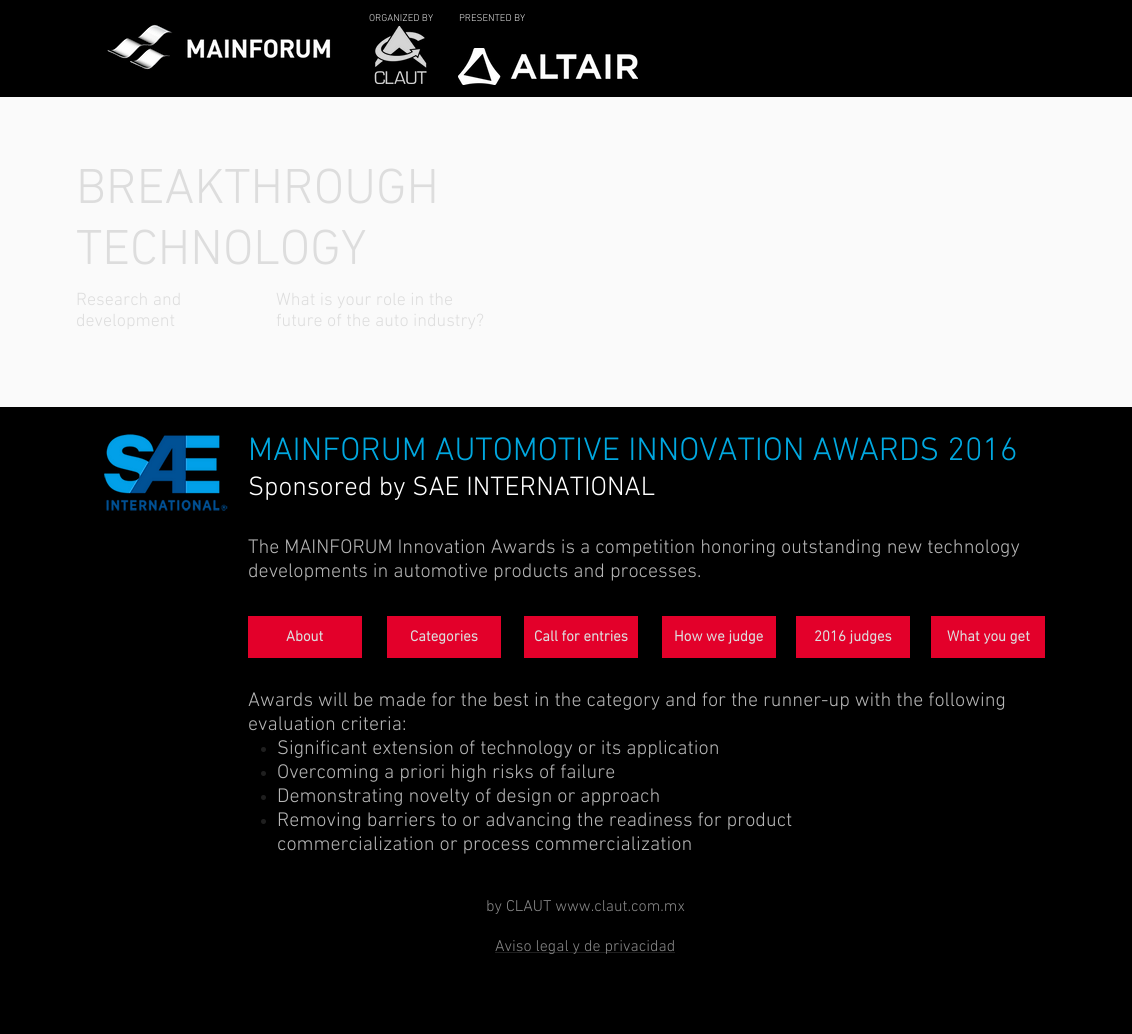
#include <cairo/cairo.h>
#include <math.h>
#include <stddef.h>

static cairo_t *cr;

static void use_color(int r, int g, int b) {
  cairo_set_source_rgb(cr, r / 255.0, g / 255.0, b / 255.0);
}

static void text(double x, double y, const char *s, const char *family, double size, int italic, int bold, int r, int g, int b) {
  cairo_select_font_face(cr, family, italic ? CAIRO_FONT_SLANT_ITALIC : CAIRO_FONT_SLANT_NORMAL,
    bold ? CAIRO_FONT_WEIGHT_BOLD : CAIRO_FONT_WEIGHT_NORMAL);
  cairo_set_font_size(cr, size);
  use_color(r, g, b);
  cairo_move_to(cr, x, y);
  cairo_show_text(cr, s);
}

static void box(double x, double y, double w, double h, int r, int g, int b) {
  use_color(r, g, b);
  cairo_rectangle(cr, x, y, w, h);
  cairo_fill(cr);
}

static void picture(const char *path, double x, double y, double w, double h) {
  cairo_surface_t *image = cairo_image_surface_create_from_png(path);
  cairo_save(cr);
  cairo_set_source_surface(cr, image, x, y);
  cairo_rectangle(cr, x, y, w, h);
  cairo_fill(cr);
  cairo_restore(cr);
  cairo_surface_destroy(image);
}

static void draw(void) {
  use_color(0, 0, 0);
  cairo_paint(cr);
  picture("img_01.png", 107, 24, 224, 46);
  picture("img_02.png", 374, 26, 53, 58);
  picture("img_03.png", 458, 48, 180, 37);
  box(0, 97, 1132, 310, 250, 250, 250);
  picture("img_04.png", 104, 434, 124, 77);
  box(248, 616, 114, 42, 227, 0, 42);
  box(387, 616, 114, 42, 227, 0, 42);
  box(524, 616, 114, 42, 227, 0, 42);
  box(662, 616, 114, 42, 227, 0, 42);
  box(796, 616, 114, 42, 227, 0, 42);
  box(931, 616, 114, 42, 227, 0, 42);
  use_color(31, 31, 31);
  cairo_arc(cr, 263.5, 749.5, 2.5, 0, 2 * M_PI);
  cairo_fill(cr);
  cairo_arc(cr, 263.5, 773.5, 2.5, 0, 2 * M_PI);
  cairo_fill(cr);
  cairo_arc(cr, 263.5, 797.5, 2.5, 0, 2 * M_PI);
  cairo_fill(cr);
  cairo_arc(cr, 263.5, 821.5, 2.5, 0, 2 * M_PI);
  cairo_fill(cr);
  box(495, 952, 180, 1, 31, 31, 31);
  text(369, 21, "ORGANIZED BY", "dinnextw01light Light", 10, 0, 0, 221, 221, 221);
  text(459, 21, "PRESENTED BY", "dinnextw01light Light", 10, 0, 0, 221, 221, 221);
  text(76, 203, "BREAKTHROUGH", "dinnextw01light Light", 50, 0, 0, 221, 221, 221);
  text(76, 264, "TECHNOLOGY", "dinnextw01light Light", 50, 0, 0, 221, 221, 221);
  text(76, 305, "Research and", "dinnextw01light Light", 18, 0, 0, 221, 221, 221);
  text(76, 326, "development", "dinnextw01light Light", 18, 0, 0, 221, 221, 221);
  text(276, 305, "What is your role in the", "dinnextw01light Light", 18, 0, 0, 221, 221, 221);
  text(276, 326, "future of the auto industry?", "dinnextw01light Light", 18, 0, 0, 221, 221, 221);
  text(248, 460, "MAINFORUM AUTOMOTIVE INNOVATION AWARDS 2016", "dinnextw01light Light", 33, 0, 0, 0, 168, 224);
  text(248, 495, "Sponsored by SAE INTERNATIONAL", "dinnextw01light Light", 27, 0, 0, 255, 255, 255);
  text(248, 553, "The MAINFORUM Innovation Awards is a competition honoring outstanding new technology", "dinnextw01light Light", 20, 0, 0, 182, 182, 182);
  text(248, 577, "developments in automotive products and processes.", "dinnextw01light Light", 20, 0, 0, 182, 182, 182);
  text(286, 641, "About", "dinnextw01light", 15, 0, 1, 221, 221, 221);
  text(410, 641, "Categories", "dinnextw01light", 15, 0, 1, 221, 221, 221);
  text(534, 641, "Call for entries", "dinnextw01light", 15, 0, 1, 221, 221, 221);
  text(674, 641, "How we judge", "dinnextw01light", 15, 0, 1, 221, 221, 221);
  text(814, 641, "2016 judges", "dinnextw01light", 15, 0, 1, 221, 221, 221);
  text(947, 641, "What you get", "dinnextw01light", 15, 0, 1, 221, 221, 221);
  text(248, 706, "Awards will be made for the best in the category and for the runner-up with the following", "dinnextw01light Light", 20, 0, 0, 182, 182, 182);
  text(248, 730, "evaluation criteria:", "dinnextw01light Light", 20, 0, 0, 182, 182, 182);
  text(277, 754, "Significant extension of technology or its application", "dinnextw01light Light", 20, 0, 0, 182, 182, 182);
  text(277, 778, "Overcoming a priori high risks of failure", "dinnextw01light Light", 20, 0, 0, 182, 182, 182);
  text(277, 802, "Demonstrating novelty of design or approach", "dinnextw01light Light", 20, 0, 0, 182, 182, 182);
  text(277, 826, "Removing barriers to or advancing the readiness for product", "dinnextw01light Light", 20, 0, 0, 182, 182, 182);
  text(277, 850, "commercialization or process commercialization", "dinnextw01light Light", 20, 0, 0, 182, 182, 182);
  text(486, 911, "by CLAUT www.claut.com.mx", "dinnextw01light Light", 16, 0, 0, 136, 136, 136);
  text(495, 951, "Aviso legal y de privacidad", "dinnextw01light Light", 16, 0, 0, 136, 136, 136);
}

int main(void) {
  cairo_surface_t *surface = cairo_image_surface_create(CAIRO_FORMAT_RGB24, 1132, 1034);
  cr = cairo_create(surface);
  cairo_font_options_t *options = cairo_font_options_create();
  cairo_font_options_set_hint_metrics(options, CAIRO_HINT_METRICS_OFF);
  cairo_font_options_set_hint_style(options, CAIRO_HINT_STYLE_NONE);
  cairo_set_font_options(cr, options);
  cairo_set_miter_limit(cr, 4);
  draw();
  cairo_surface_write_to_png(surface, "out.png");
  cairo_font_options_destroy(options);
  cairo_destroy(cr);
  cairo_surface_destroy(surface);
  return 0;
}
